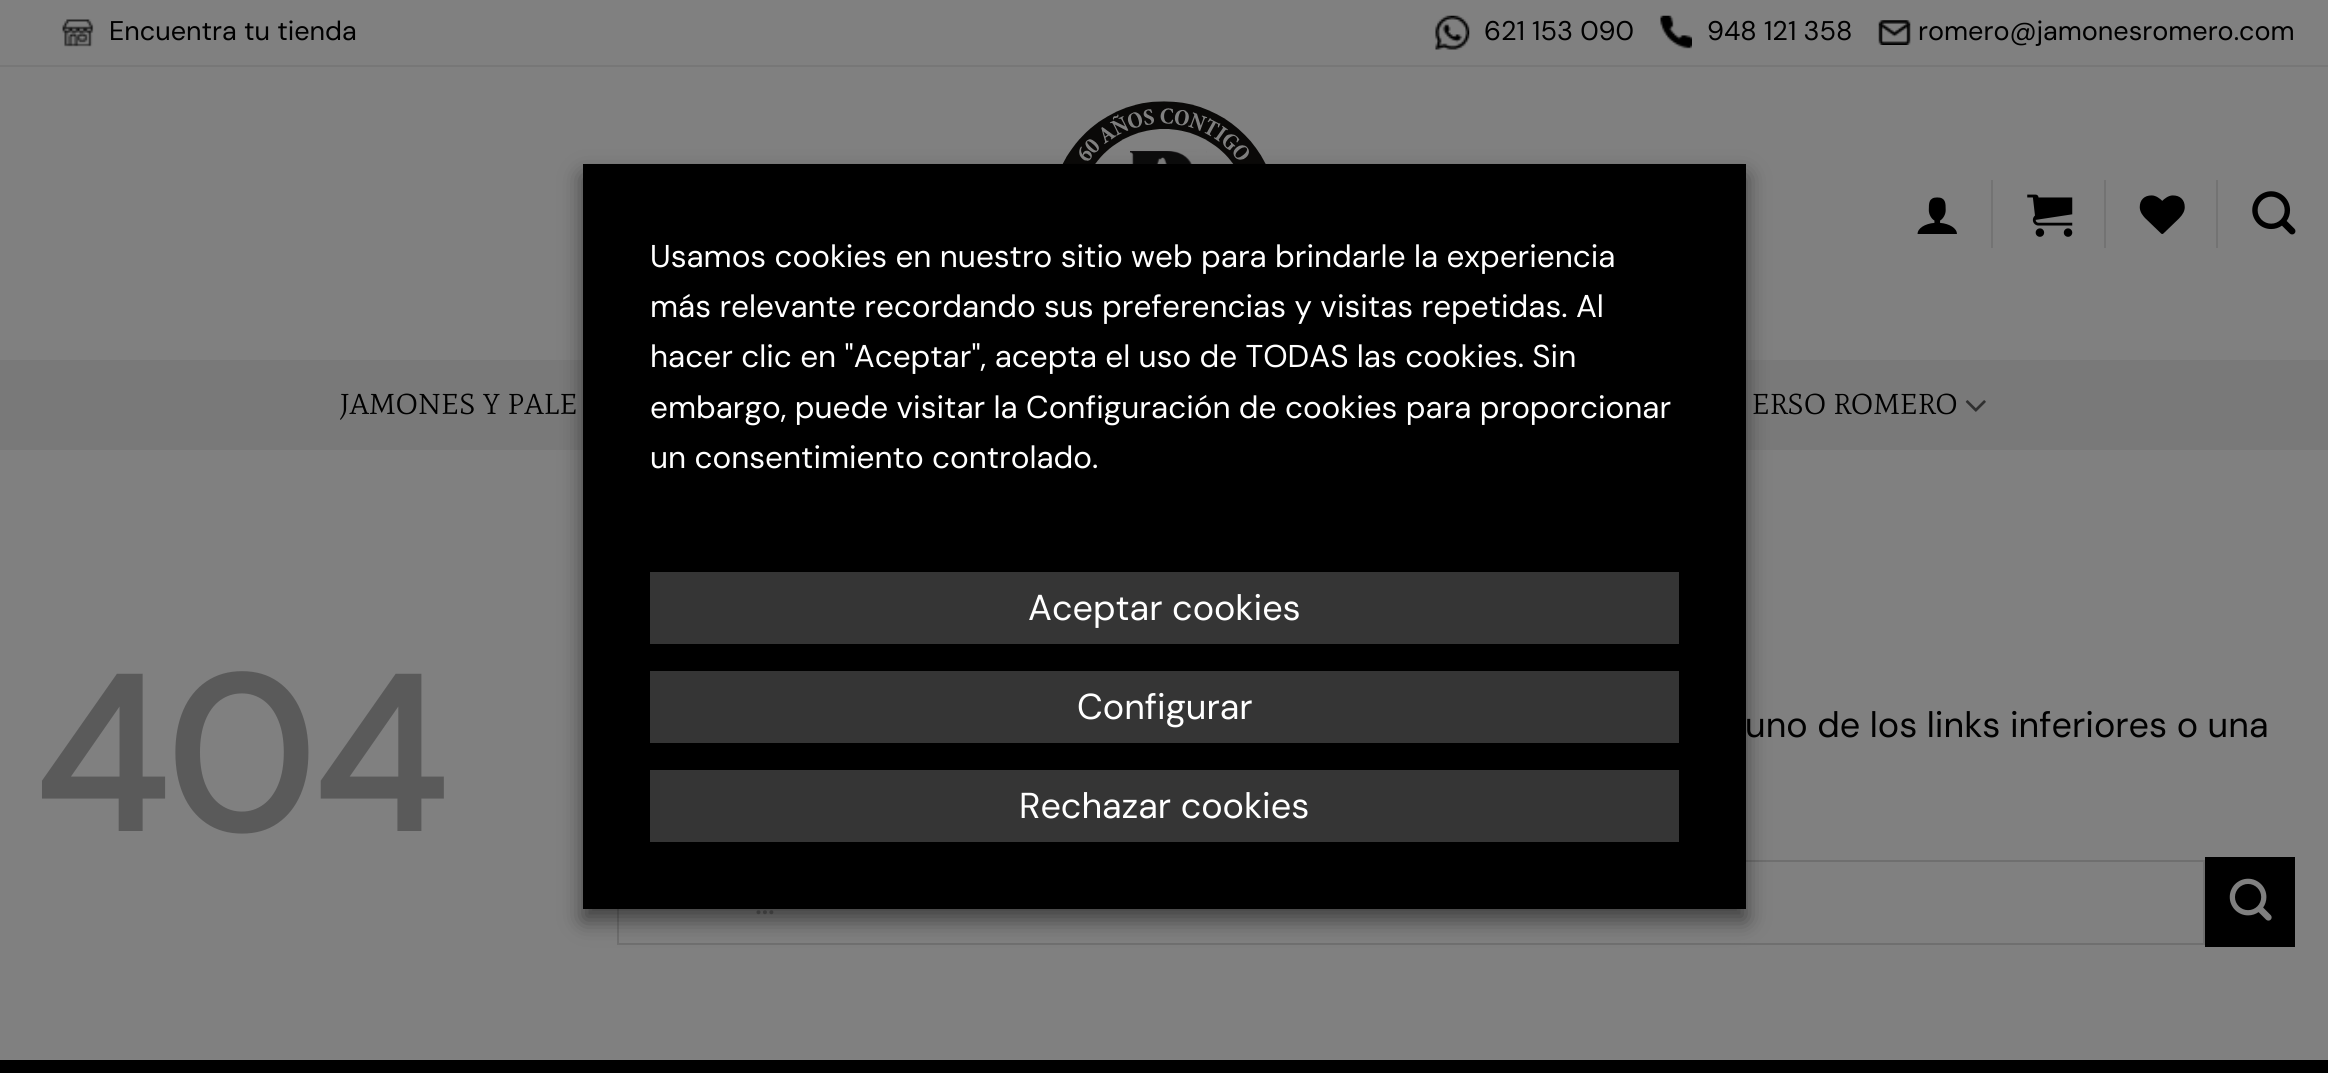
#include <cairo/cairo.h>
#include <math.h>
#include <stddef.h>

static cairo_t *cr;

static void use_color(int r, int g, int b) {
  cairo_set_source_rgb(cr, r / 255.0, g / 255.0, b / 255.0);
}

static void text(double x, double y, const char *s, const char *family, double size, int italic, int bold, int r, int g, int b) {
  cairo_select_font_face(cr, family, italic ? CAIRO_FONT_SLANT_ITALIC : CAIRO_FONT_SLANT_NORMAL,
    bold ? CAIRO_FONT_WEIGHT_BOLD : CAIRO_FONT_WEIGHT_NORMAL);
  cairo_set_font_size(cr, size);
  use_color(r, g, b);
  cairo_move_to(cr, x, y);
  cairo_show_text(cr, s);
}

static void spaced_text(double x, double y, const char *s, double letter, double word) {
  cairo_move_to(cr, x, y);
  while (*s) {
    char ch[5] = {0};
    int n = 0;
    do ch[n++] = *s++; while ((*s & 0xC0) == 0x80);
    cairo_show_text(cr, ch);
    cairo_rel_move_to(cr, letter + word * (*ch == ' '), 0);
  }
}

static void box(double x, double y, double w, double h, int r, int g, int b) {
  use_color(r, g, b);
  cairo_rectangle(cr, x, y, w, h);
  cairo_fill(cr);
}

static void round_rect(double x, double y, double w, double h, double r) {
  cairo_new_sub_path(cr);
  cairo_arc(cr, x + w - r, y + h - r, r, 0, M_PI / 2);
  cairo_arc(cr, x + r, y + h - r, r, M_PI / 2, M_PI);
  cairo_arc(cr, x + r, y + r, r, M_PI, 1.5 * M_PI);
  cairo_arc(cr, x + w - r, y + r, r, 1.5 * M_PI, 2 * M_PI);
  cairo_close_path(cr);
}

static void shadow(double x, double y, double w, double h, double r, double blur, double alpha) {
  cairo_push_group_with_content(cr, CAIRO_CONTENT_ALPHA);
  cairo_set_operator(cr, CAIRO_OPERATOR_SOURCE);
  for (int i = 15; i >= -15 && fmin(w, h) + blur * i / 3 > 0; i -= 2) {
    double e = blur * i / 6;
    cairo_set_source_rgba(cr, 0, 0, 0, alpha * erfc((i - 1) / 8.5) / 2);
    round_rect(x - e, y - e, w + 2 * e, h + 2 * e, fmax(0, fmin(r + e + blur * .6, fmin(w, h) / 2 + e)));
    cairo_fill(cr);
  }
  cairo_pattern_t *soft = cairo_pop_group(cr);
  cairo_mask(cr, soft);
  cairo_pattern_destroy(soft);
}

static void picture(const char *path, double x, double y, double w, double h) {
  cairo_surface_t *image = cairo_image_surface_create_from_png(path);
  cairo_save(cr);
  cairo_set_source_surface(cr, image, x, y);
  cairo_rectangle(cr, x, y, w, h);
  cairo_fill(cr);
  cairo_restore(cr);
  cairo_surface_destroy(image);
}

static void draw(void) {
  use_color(128, 128, 128);
  cairo_paint(cr);
  box(0, 65, 2328, 2, 119, 119, 119);
  picture("img_01.png", 62, 19, 32, 28);
  picture("img_02.png", 1435, 15, 35, 35);
  picture("img_03.png", 1660, 15, 32, 34);
  picture("img_04.png", 1878, 20, 33, 25);
  picture("img_05.png", 1062, 101, 204, 63);
  picture("img_06.png", 1917, 197, 40, 37);
  box(1991, 180, 2, 68, 115, 115, 115);
  picture("img_07.png", 2027, 194, 46, 43);
  box(2104, 180, 2, 68, 115, 115, 115);
  picture("img_08.png", 2139, 195, 46, 39);
  box(2216, 180, 2, 68, 115, 115, 115);
  picture("img_09.png", 2252, 191, 44, 44);
  box(0, 360, 2328, 90, 121, 121, 121);
  picture("img_10.png", 1965, 400, 21, 12);
  cairo_rectangle(cr, 618, 861, 1586, 83);
  use_color(111, 111, 111);
  cairo_stroke(cr);
  box(2205, 857, 90, 90, 0, 0, 0);
  picture("img_11.png", 2229, 878, 43, 43);
  box(0, 1060, 2328, 13, 0, 0, 0);
  use_color(0, 0, 0);
  shadow(583, 176, 1163, 744, 0, 11, 0.5);
  box(583, 164, 1163, 745, 0, 0, 0);
  box(650, 572, 1029, 72, 53, 53, 53);
  box(650, 671, 1029, 72, 53, 53, 53);
  box(650, 770, 1029, 72, 53, 53, 53);
  text(109, 40, "Encuentra tu tienda", "DM Sans", 27, 0, 0, 0, 0, 0);
  text(1484, 40, "621 153 090", "DM Sans", 27, 0, 0, 0, 0, 0);
  text(1707, 40, "948 121 358", "DM Sans", 27, 0, 0, 0, 0, 0);
  text(1918, 40, "romero@jamonesromero.com", "DM Sans", 27, 0, 0, 0, 0, 0);
  cairo_select_font_face(cr, "Mate SC", CAIRO_FONT_SLANT_NORMAL, CAIRO_FONT_WEIGHT_NORMAL);
  cairo_set_font_size(cr, 28.75);
  spaced_text(340, 414, "JAMONES Y PALE", 0.6, 0);
  spaced_text(1752, 414, "ERSO ROMERO", 0.6, 0);
  text(34, 831, "404", "DM Sans", 216, 0, 1, 90, 90, 90);
  text(1745, 737, "uno de los links inferiores o una", "DM Sans", 36, 0, 0, 0, 0, 0);
  text(755, 914, "…", "DM Sans", 35, 0, 0, 59, 59, 59);
  text(650, 267, "Usamos cookies en nuestro sitio web para brindarle la experiencia", "DM Sans", 31.5, 0, 0, 255, 255, 255);
  text(650, 317, "más relevante recordando sus preferencias y visitas repetidas. Al", "DM Sans", 31.5, 0, 0, 255, 255, 255);
  text(650, 367, "hacer clic en \"Aceptar\", acepta el uso de TODAS las cookies. Sin", "DM Sans", 31.5, 0, 0, 255, 255, 255);
  text(650, 418, "embargo, puede visitar la Configuración de cookies para proporcionar", "DM Sans", 31.5, 0, 0, 255, 255, 255);
  text(650, 468, "un consentimiento controlado.", "DM Sans", 31.5, 0, 0, 255, 255, 255);
  text(1028, 620, "Aceptar cookies", "DM Sans", 36, 0, 0, 255, 255, 255);
  text(1077, 719, "Configurar", "DM Sans", 36, 0, 0, 255, 255, 255);
  text(1019, 818, "Rechazar cookies", "DM Sans", 36, 0, 0, 255, 255, 255);
}

int main(void) {
  cairo_surface_t *surface = cairo_image_surface_create(CAIRO_FORMAT_RGB24, 2328, 1073);
  cr = cairo_create(surface);
  cairo_font_options_t *options = cairo_font_options_create();
  cairo_font_options_set_hint_metrics(options, CAIRO_HINT_METRICS_OFF);
  cairo_font_options_set_hint_style(options, CAIRO_HINT_STYLE_NONE);
  cairo_set_font_options(cr, options);
  cairo_set_miter_limit(cr, 4);
  draw();
  cairo_surface_write_to_png(surface, "out.png");
  cairo_font_options_destroy(options);
  cairo_destroy(cr);
  cairo_surface_destroy(surface);
  return 0;
}
